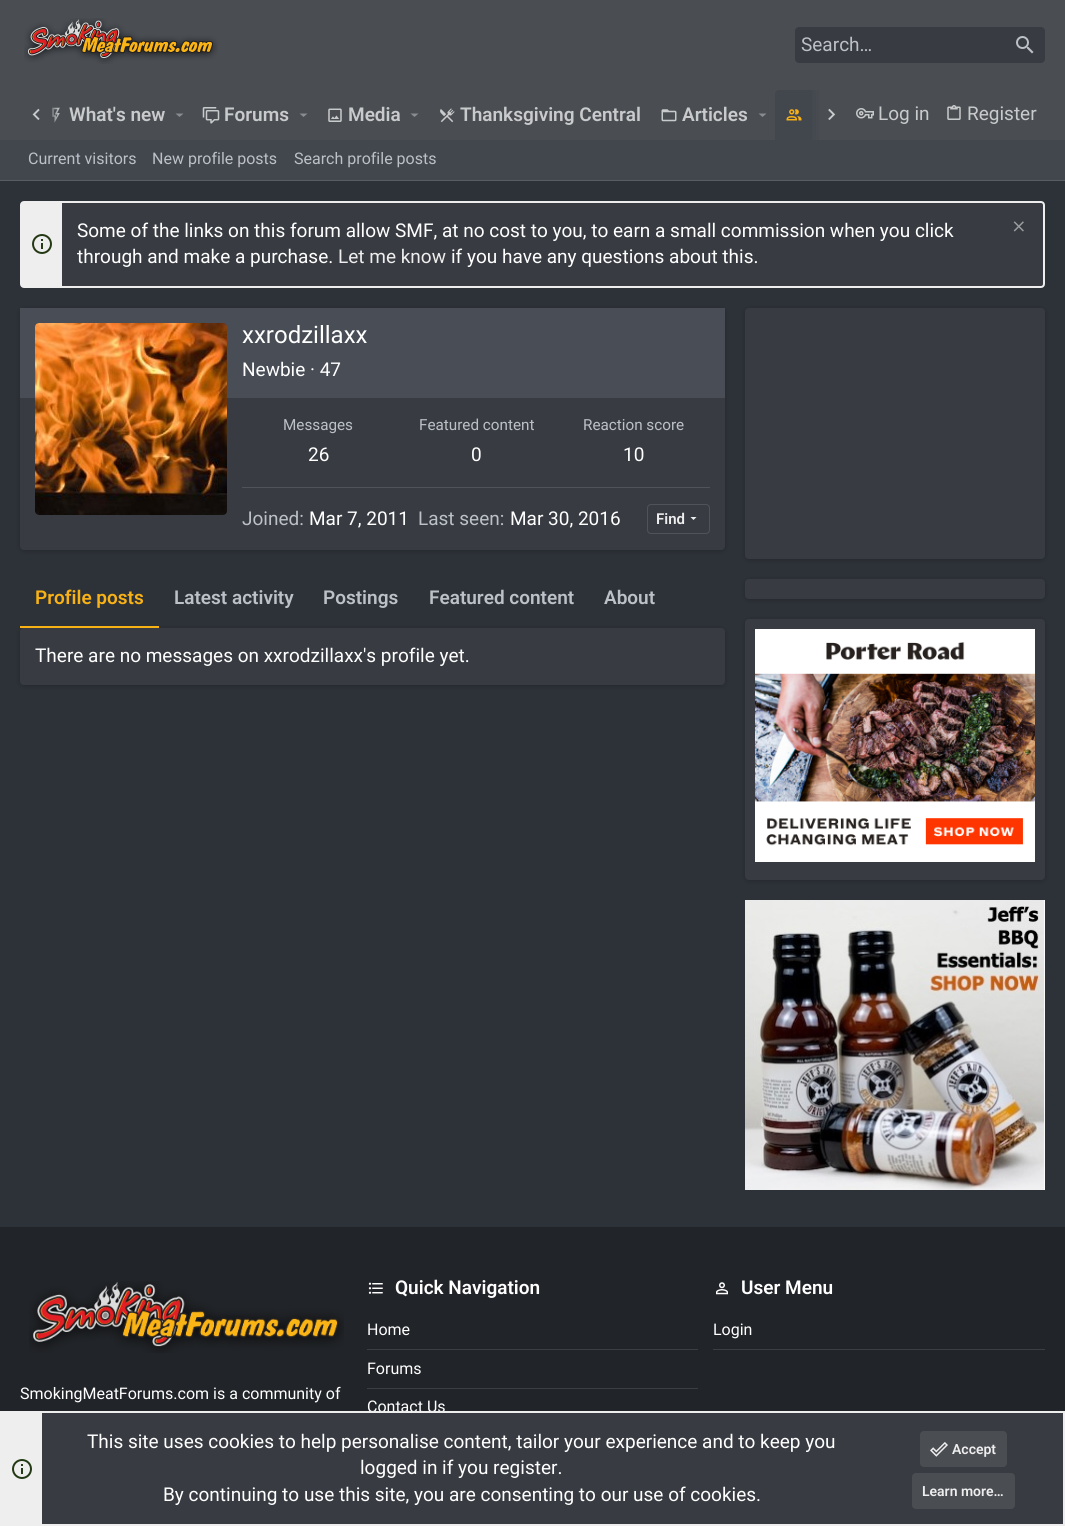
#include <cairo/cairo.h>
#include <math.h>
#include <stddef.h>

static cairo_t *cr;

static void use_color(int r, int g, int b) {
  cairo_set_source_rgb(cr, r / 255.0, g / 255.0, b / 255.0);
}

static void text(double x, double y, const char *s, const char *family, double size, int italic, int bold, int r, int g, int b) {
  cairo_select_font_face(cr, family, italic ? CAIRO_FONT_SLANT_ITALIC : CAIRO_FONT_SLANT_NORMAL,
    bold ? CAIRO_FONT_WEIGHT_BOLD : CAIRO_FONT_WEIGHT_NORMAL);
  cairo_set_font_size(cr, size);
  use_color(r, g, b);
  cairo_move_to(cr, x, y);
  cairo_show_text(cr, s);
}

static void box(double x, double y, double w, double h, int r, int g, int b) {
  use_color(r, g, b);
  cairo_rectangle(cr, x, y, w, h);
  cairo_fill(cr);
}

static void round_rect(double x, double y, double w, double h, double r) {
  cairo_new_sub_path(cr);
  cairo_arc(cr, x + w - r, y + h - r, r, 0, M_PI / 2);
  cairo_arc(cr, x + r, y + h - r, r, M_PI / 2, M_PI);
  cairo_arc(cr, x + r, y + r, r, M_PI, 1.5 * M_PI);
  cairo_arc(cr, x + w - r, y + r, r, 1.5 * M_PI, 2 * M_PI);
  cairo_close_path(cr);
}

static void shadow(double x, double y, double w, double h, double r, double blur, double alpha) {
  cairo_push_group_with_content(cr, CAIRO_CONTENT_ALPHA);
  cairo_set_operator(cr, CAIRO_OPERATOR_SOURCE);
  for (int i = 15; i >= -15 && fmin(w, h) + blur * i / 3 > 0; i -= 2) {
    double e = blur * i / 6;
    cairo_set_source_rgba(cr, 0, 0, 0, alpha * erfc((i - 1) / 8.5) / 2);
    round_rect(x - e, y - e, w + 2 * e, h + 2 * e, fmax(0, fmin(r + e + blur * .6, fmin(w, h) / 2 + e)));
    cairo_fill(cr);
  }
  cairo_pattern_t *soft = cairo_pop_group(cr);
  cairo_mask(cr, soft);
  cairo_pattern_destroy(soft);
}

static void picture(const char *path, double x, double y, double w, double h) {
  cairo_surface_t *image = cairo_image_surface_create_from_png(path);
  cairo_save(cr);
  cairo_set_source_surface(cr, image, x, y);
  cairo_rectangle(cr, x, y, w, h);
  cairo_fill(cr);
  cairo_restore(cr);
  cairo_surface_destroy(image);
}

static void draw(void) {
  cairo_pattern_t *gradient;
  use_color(45, 50, 56);
  cairo_paint(cr);
  box(0, 0, 1065, 140, 74, 78, 83);
  picture("img_01.png", 24, 18, 194, 46);
  use_color(56, 60, 66);
  round_rect(795, 27, 250, 36, 4);
  cairo_fill(cr);
  picture("img_02.png", 1016, 36, 18, 18);
  picture("img_04.png", 52, 107, 8, 16);
  gradient = cairo_pattern_create_linear(20, 115, 60, 115);
  cairo_pattern_add_color_stop_rgba(gradient, 0.66, 0.29, 0.306, 0.325, 1);
  cairo_pattern_add_color_stop_rgba(gradient, 1, 0.29, 0.306, 0.325, 0);
  cairo_set_source(cr, gradient);
  cairo_pattern_destroy(gradient);
  cairo_rectangle(cr, 52, 107, 7, 16);
  cairo_fill(cr);
  picture("img_03.png", 32, 108, 8, 12);
  use_color(138, 140, 143);
  cairo_new_path(cr);
  cairo_move_to(cr, 175.5, 113.5);
  cairo_line_to(cr, 179.5, 117);
  cairo_line_to(cr, 183.5, 113.5);
  cairo_close_path(cr);
  cairo_fill(cr);
  picture("img_05.png", 202, 107, 18, 17);
  cairo_new_path(cr);
  cairo_move_to(cr, 299.5, 113.5);
  cairo_line_to(cr, 303.5, 117);
  cairo_line_to(cr, 307.5, 113.5);
  cairo_close_path(cr);
  cairo_fill(cr);
  picture("img_06.png", 328, 108, 14, 14);
  cairo_new_path(cr);
  cairo_move_to(cr, 410.5, 113.5);
  cairo_line_to(cr, 414.5, 117);
  cairo_line_to(cr, 418.5, 113.5);
  cairo_close_path(cr);
  cairo_fill(cr);
  picture("img_07.png", 440, 108, 15, 15);
  picture("img_08.png", 661, 109, 16, 13);
  cairo_new_path(cr);
  cairo_move_to(cr, 758.5, 113.5);
  cairo_line_to(cr, 762.5, 117);
  cairo_line_to(cr, 766.5, 113.5);
  cairo_close_path(cr);
  cairo_fill(cr);
  use_color(66, 70, 77);
  cairo_new_path(cr);
  cairo_move_to(cr, 779, 90);
  cairo_line_to(cr, 848, 90);
  cairo_line_to(cr, 848, 140);
  cairo_line_to(cr, 775, 140);
  cairo_line_to(cr, 775, 94);
  cairo_curve_to(cr, 775, 92, 777, 90, 779, 90);
  cairo_close_path(cr);
  cairo_fill(cr);
  picture("img_09.png", 786, 109, 16, 12);
  gradient = cairo_pattern_create_linear(808, 115, 848, 115);
  cairo_pattern_add_color_stop_rgba(gradient, 0, 0.29, 0.306, 0.325, 0);
  cairo_pattern_add_color_stop_rgba(gradient, 0.33, 0.29, 0.306, 0.325, 1);
  cairo_set_source(cr, gradient);
  cairo_pattern_destroy(gradient);
  cairo_rectangle(cr, 812, 90, 36, 50);
  cairo_fill(cr);
  picture("img_10.png", 828, 108, 8, 12);
  picture("img_11.png", 856, 108, 18, 11);
  picture("img_12.png", 947, 105, 14, 15);
  box(0, 140, 1065, 40, 66, 70, 77);
  box(0, 180, 1065, 1, 89, 92, 98);
  use_color(56, 60, 66);
  round_rect(21, 202, 1023, 85, 3);
  cairo_fill_preserve(cr);
  use_color(239, 238, 238);
  cairo_stroke(cr);
  box(22, 203, 40, 83, 239, 238, 238);
  picture("img_13.png", 32, 234, 20, 20);
  picture("img_14.png", 1013, 221, 11, 11);
  use_color(0, 0, 0);
  shadow(20, 309, 705, 242, 4, 2.5, 0.2);
  use_color(56, 60, 66);
  round_rect(20, 308, 705, 242, 4);
  cairo_fill(cr);
  box(20, 308, 705, 90, 72, 77, 86);
  picture("img_15.png", 35, 323, 192, 192);
  box(242, 487, 468, 1, 80, 83, 89);
  round_rect(647.5, 504.5, 62, 29, 3.5);
  cairo_set_line_width(cr, 1);
  cairo_stroke(cr);
  use_color(239, 238, 238);
  cairo_new_path(cr);
  cairo_move_to(cr, 690.5, 517);
  cairo_line_to(cr, 693.5, 520);
  cairo_line_to(cr, 696.5, 517);
  cairo_close_path(cr);
  cairo_fill(cr);
  use_color(0, 0, 0);
  shadow(20, 629, 705, 57, 4, 2.5, 0.2);
  box(20, 626, 139, 2, 249, 178, 22);
  use_color(56, 60, 66);
  round_rect(20, 628, 705, 57, 4);
  cairo_fill(cr);
  use_color(0, 0, 0);
  shadow(745, 309, 300, 251, 4, 2.5, 0.2);
  use_color(56, 60, 66);
  round_rect(745, 308, 300, 251, 4);
  cairo_fill(cr);
  use_color(0, 0, 0);
  shadow(745, 580, 300, 20, 4, 2.5, 0.2);
  use_color(56, 60, 66);
  round_rect(745, 579, 300, 20, 4);
  cairo_fill(cr);
  use_color(0, 0, 0);
  shadow(745, 620, 300, 261, 4, 2.5, 0.2);
  use_color(56, 60, 66);
  round_rect(745, 619, 300, 261, 4);
  cairo_fill(cr);
  picture("img_16.png", 755, 629, 280, 233);
  picture("img_17.png", 745, 900, 300, 290);
  box(0, 1227, 1065, 184, 33, 36, 40);
  picture("img_18.png", 368, 1282, 15, 12);
  box(367, 1349, 331, 1, 60, 62, 66);
  box(367, 1388, 331, 1, 60, 62, 66);
  picture("img_19.png", 716, 1282, 12, 13);
  box(713, 1349, 332, 1, 60, 62, 66);
  picture("img_20.png", 29, 1281, 315, 72);
  box(42, 1413, 1021, 111, 56, 60, 66);
  text(801, 51, "Search…", "Roboto", 19, 0, 0, 188, 192, 199);
  text(69, 121, "What's new", "Roboto SemiBold", 19, 0, 0, 201, 202, 203);
  text(224, 121, "Forums", "Roboto SemiBold", 19, 0, 0, 201, 202, 203);
  text(348, 121, "Media", "Roboto SemiBold", 19, 0, 0, 201, 202, 203);
  text(460, 121, "Thanksgiving Central", "Roboto SemiBold", 19, 0, 0, 201, 202, 203);
  text(682, 121, "Articles", "Roboto SemiBold", 19, 0, 0, 201, 202, 203);
  text(878, 120, "Log in", "Roboto", 19, 0, 0, 201, 202, 203);
  text(967, 120, "Register", "Roboto", 19, 0, 0, 201, 202, 203);
  text(28, 164, "Current visitors", "Roboto", 16, 0, 0, 188, 192, 199);
  text(152, 164, "New profile posts", "Roboto", 16, 0, 0, 188, 192, 199);
  text(294, 164, "Search profile posts", "Roboto", 16, 0, 0, 188, 192, 199);
  text(77, 237, "Some of the links on this forum allow SMF, at no cost to you, to earn a small commission when you click", "Roboto", 19, 0, 0, 255, 255, 255);
  text(77, 263, "through and make a purchase.", "Roboto", 19, 0, 0, 255, 255, 255);
  text(338, 263, "Let me know", "Roboto", 19, 0, 0, 239, 238, 238);
  text(451, 263, "if you have any questions about this.", "Roboto", 19, 0, 0, 255, 255, 255);
  text(242, 343, "xxrodzillaxx", "Roboto", 24, 0, 0, 255, 255, 255);
  text(242, 376, "Newbie · 47", "Roboto", 19, 0, 0, 255, 255, 255);
  text(283, 430, "Messages", "Roboto", 15.25, 0, 0, 188, 192, 199);
  text(308, 461, "26", "Roboto", 19, 0, 0, 255, 255, 255);
  text(419, 430, "Featured content", "Roboto", 15.25, 0, 0, 188, 192, 199);
  text(471, 461, "0", "Roboto", 19, 0, 0, 255, 255, 255);
  text(583, 430, "Reaction score", "Roboto", 15.25, 0, 0, 188, 192, 199);
  text(623, 461, "10", "Roboto", 19, 0, 0, 255, 255, 255);
  text(242, 525, "Joined:", "Roboto", 19, 0, 0, 188, 192, 199);
  text(309, 525, "Mar 7, 2011", "Roboto", 19, 0, 0, 255, 255, 255);
  text(418, 525, "Last seen:", "Roboto", 19, 0, 0, 188, 192, 199);
  text(510, 525, "Mar 30, 2016", "Roboto", 19, 0, 0, 255, 255, 255);
  text(656, 524, "Find", "Roboto SemiBold", 15, 0, 0, 239, 238, 238);
  text(35, 604, "Profile posts", "Roboto SemiBold", 19, 0, 0, 249, 178, 22);
  text(174, 604, "Latest activity", "Roboto SemiBold", 19, 0, 0, 188, 192, 199);
  text(323, 604, "Postings", "Roboto SemiBold", 19, 0, 0, 188, 192, 199);
  text(429, 604, "Featured content", "Roboto SemiBold", 19, 0, 0, 188, 192, 199);
  text(604, 604, "About", "Roboto SemiBold", 19, 0, 0, 188, 192, 199);
  text(35, 662, "There are no messages on xxrodzillaxx's profile yet.", "Roboto", 19, 0, 0, 255, 255, 255);
  text(395, 1294, "Quick Navigation", "Roboto SemiBold", 19, 0, 0, 255, 255, 255);
  text(367, 1335, "Home", "Roboto", 16, 0, 0, 255, 255, 255);
  text(367, 1374, "Forums", "Roboto", 16, 0, 0, 255, 255, 255);
  text(367, 1412, "Contact Us", "Roboto", 16, 0, 0, 255, 255, 255);
  text(741, 1294, "User Menu", "Roboto SemiBold", 19, 0, 0, 255, 255, 255);
  text(713, 1335, "Login", "Roboto", 16, 0, 0, 255, 255, 255);
  text(20, 1399, "SmokingMeatForums.com is a community of", "Roboto", 16, 0, 0, 255, 255, 255);
  cairo_rectangle(cr, 1, 1412, 1063, 113);
  use_color(239, 238, 238);
  cairo_set_line_width(cr, 2);
  cairo_stroke(cr);
  box(2, 1413, 40, 111, 239, 238, 238);
  picture("img_13.png", 12, 1459, 20, 20);
  text(87, 1448, "This site uses cookies to help personalise content, tailor your experience and to keep you", "Roboto", 19, 0, 0, 255, 255, 255);
  text(360, 1474, "logged in if you register.", "Roboto", 19, 0, 0, 255, 255, 255);
  text(163, 1501, "By continuing to use this site, you are consenting to our use of cookies.", "Roboto", 19, 0, 0, 255, 255, 255);
  use_color(74, 78, 83);
  round_rect(920, 1431, 87, 36, 4);
  cairo_fill(cr);
  picture("img_21.png", 930, 1442, 18, 15);
  text(952, 1454, "Accept", "Roboto SemiBold", 14, 0, 0, 239, 238, 238);
  use_color(74, 78, 83);
  round_rect(912, 1473, 103, 36, 4);
  cairo_fill(cr);
  text(922, 1496, "Learn more…", "Roboto SemiBold", 14, 0, 0, 239, 238, 238);
}

int main(void) {
  cairo_surface_t *surface = cairo_image_surface_create(CAIRO_FORMAT_RGB24, 1065, 1526);
  cr = cairo_create(surface);
  cairo_font_options_t *options = cairo_font_options_create();
  cairo_font_options_set_hint_metrics(options, CAIRO_HINT_METRICS_OFF);
  cairo_font_options_set_hint_style(options, CAIRO_HINT_STYLE_NONE);
  cairo_set_font_options(cr, options);
  cairo_set_miter_limit(cr, 4);
  draw();
  cairo_surface_write_to_png(surface, "out.png");
  cairo_font_options_destroy(options);
  cairo_destroy(cr);
  cairo_surface_destroy(surface);
  return 0;
}
